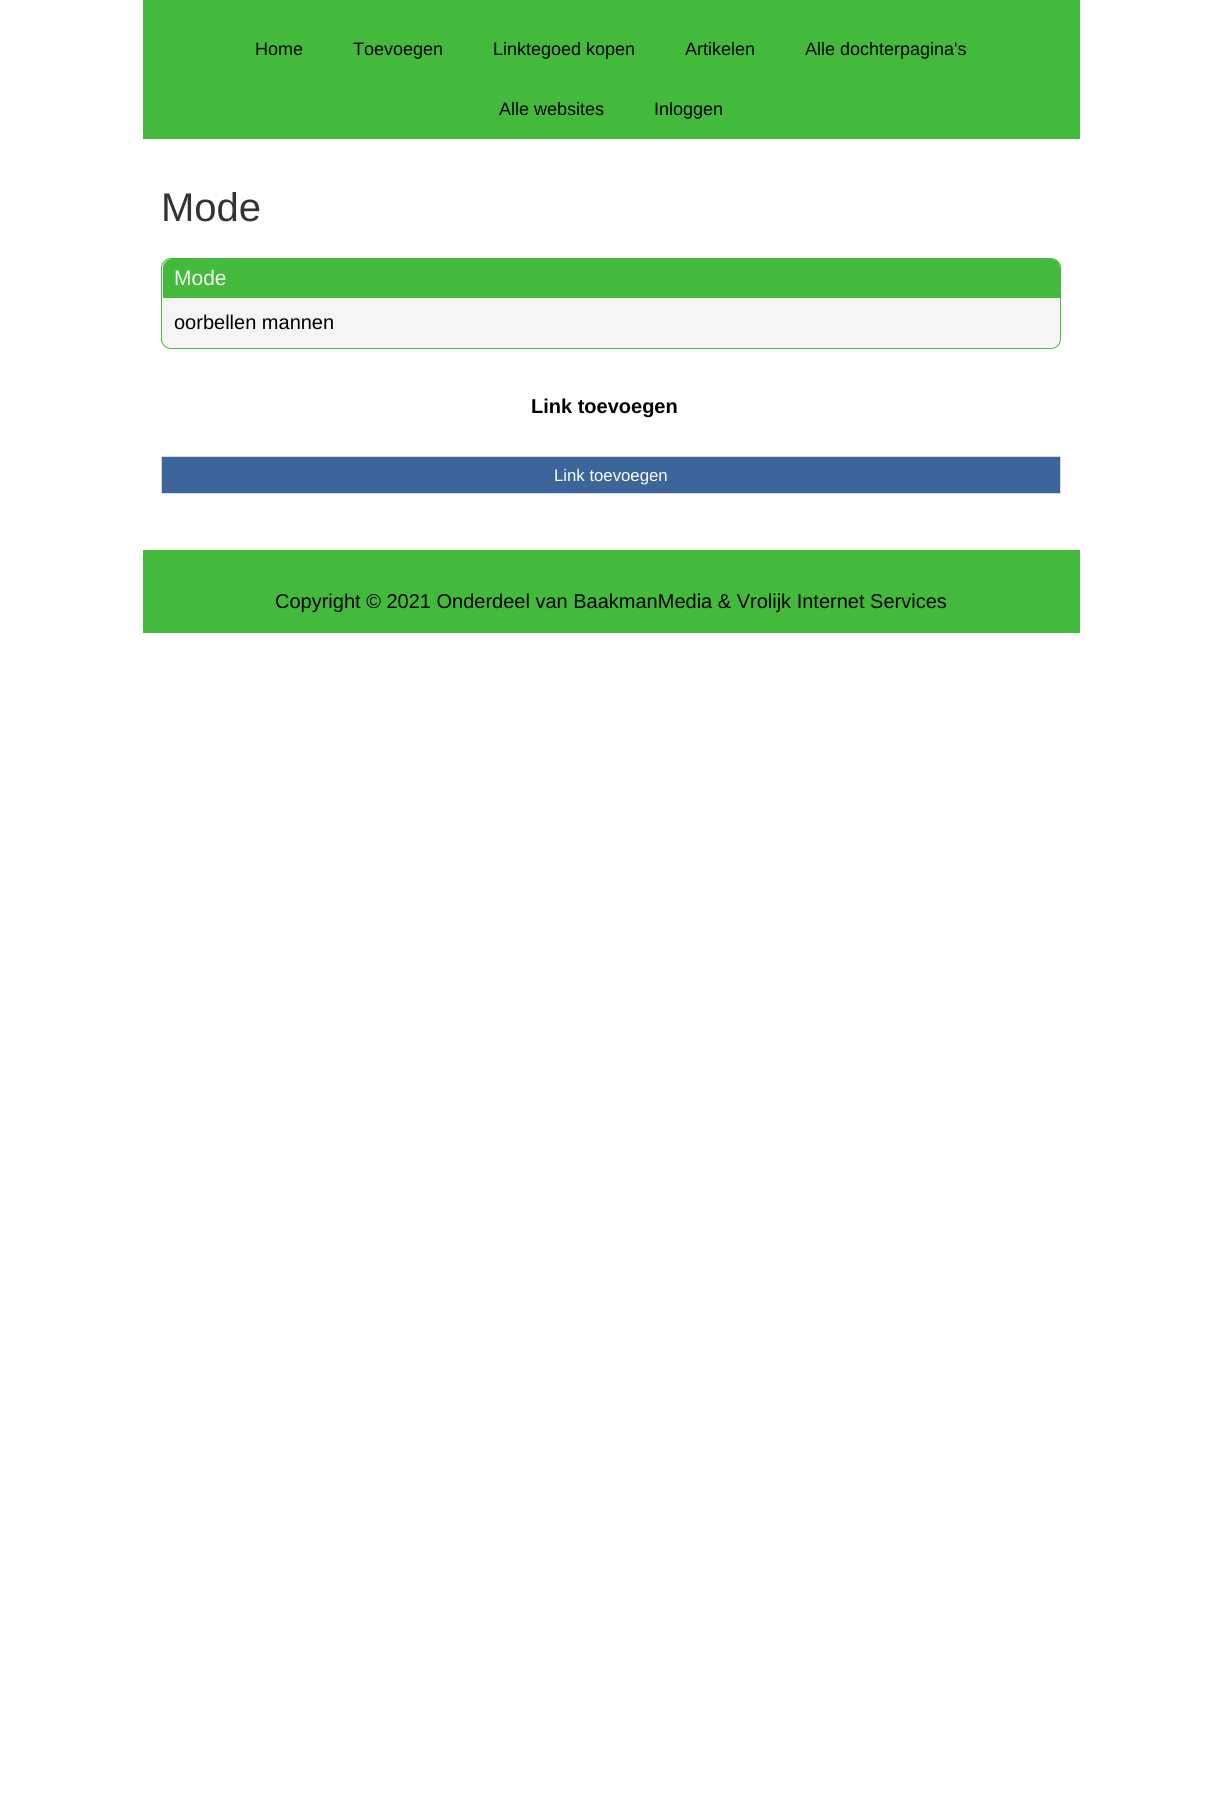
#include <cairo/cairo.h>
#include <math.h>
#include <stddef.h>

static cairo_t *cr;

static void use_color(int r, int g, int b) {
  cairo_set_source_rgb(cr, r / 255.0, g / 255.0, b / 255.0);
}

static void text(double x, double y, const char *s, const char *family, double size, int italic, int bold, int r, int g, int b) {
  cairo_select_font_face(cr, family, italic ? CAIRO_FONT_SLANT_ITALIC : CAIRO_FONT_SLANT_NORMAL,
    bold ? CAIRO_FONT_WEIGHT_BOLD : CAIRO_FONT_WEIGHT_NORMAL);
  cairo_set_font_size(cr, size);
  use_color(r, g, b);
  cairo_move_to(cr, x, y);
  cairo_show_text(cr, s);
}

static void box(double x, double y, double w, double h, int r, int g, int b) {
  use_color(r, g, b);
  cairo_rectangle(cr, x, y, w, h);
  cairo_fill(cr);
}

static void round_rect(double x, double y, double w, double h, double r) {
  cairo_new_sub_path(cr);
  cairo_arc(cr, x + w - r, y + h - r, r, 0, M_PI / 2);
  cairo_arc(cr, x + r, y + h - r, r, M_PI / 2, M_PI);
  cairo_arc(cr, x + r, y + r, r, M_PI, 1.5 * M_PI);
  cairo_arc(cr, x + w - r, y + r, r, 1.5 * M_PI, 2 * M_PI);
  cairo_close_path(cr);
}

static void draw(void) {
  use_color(255, 255, 255);
  cairo_paint(cr);
  box(143, 0, 937, 139, 67, 186, 59);
  use_color(245, 245, 245);
  round_rect(161.5, 258.5, 899, 90, 9.5);
  cairo_fill_preserve(cr);
  use_color(67, 186, 59);
  cairo_set_line_width(cr, 1);
  cairo_stroke(cr);
  cairo_new_path(cr);
  cairo_move_to(cr, 172, 259);
  cairo_line_to(cr, 1051, 259);
  cairo_curve_to(cr, 1056, 259, 1060, 263, 1060, 268);
  cairo_line_to(cr, 1060, 298);
  cairo_line_to(cr, 163, 298);
  cairo_line_to(cr, 163, 268);
  cairo_curve_to(cr, 163, 263, 167, 259, 172, 259);
  cairo_close_path(cr);
  cairo_fill(cr);
  use_color(59, 101, 155);
  cairo_rectangle(cr, 161.5, 456.5, 899, 37);
  cairo_fill_preserve(cr);
  use_color(218, 218, 218);
  cairo_stroke(cr);
  box(143, 550, 937, 83, 67, 186, 59);
  text(255, 55, "Home", "Liberation Sans", 18, 0, 0, 0, 0, 0);
  text(353, 55, "Toevoegen", "Liberation Sans", 18, 0, 0, 0, 0, 0);
  text(493, 55, "Linktegoed kopen", "Liberation Sans", 18, 0, 0, 0, 0, 0);
  text(685, 55, "Artikelen", "Liberation Sans", 18, 0, 0, 0, 0, 0);
  text(805, 55, "Alle dochterpagina's", "Liberation Sans", 18, 0, 0, 0, 0, 0);
  text(499, 115, "Alle websites", "Liberation Sans", 18, 0, 0, 0, 0, 0);
  text(654, 115, "Inloggen", "Liberation Sans", 18, 0, 0, 0, 0, 0);
  text(161, 221, "Mode", "Liberation Sans", 40, 0, 0, 51, 51, 51);
  text(174, 285, "Mode", "Liberation Sans", 21, 0, 0, 248, 248, 247);
  text(174, 329, "oorbellen mannen", "Liberation Sans", 20, 0, 0, 0, 0, 0);
  text(531, 413, "Link toevoegen", "Liberation Sans", 20, 0, 1, 0, 0, 0);
  text(554, 481, "Link toevoegen", "Liberation Sans", 16.75, 0, 0, 255, 255, 255);
  text(275, 608, "Copyright © 2021 Onderdeel van BaakmanMedia & Vrolijk Internet Services", "Liberation Sans", 20, 0, 0, 0, 0, 0);
}

int main(void) {
  cairo_surface_t *surface = cairo_image_surface_create(CAIRO_FORMAT_RGB24, 1221, 1815);
  cr = cairo_create(surface);
  cairo_font_options_t *options = cairo_font_options_create();
  cairo_font_options_set_hint_metrics(options, CAIRO_HINT_METRICS_OFF);
  cairo_font_options_set_hint_style(options, CAIRO_HINT_STYLE_NONE);
  cairo_set_font_options(cr, options);
  cairo_set_miter_limit(cr, 4);
  draw();
  cairo_surface_write_to_png(surface, "out.png");
  cairo_font_options_destroy(options);
  cairo_destroy(cr);
  cairo_surface_destroy(surface);
  return 0;
}
